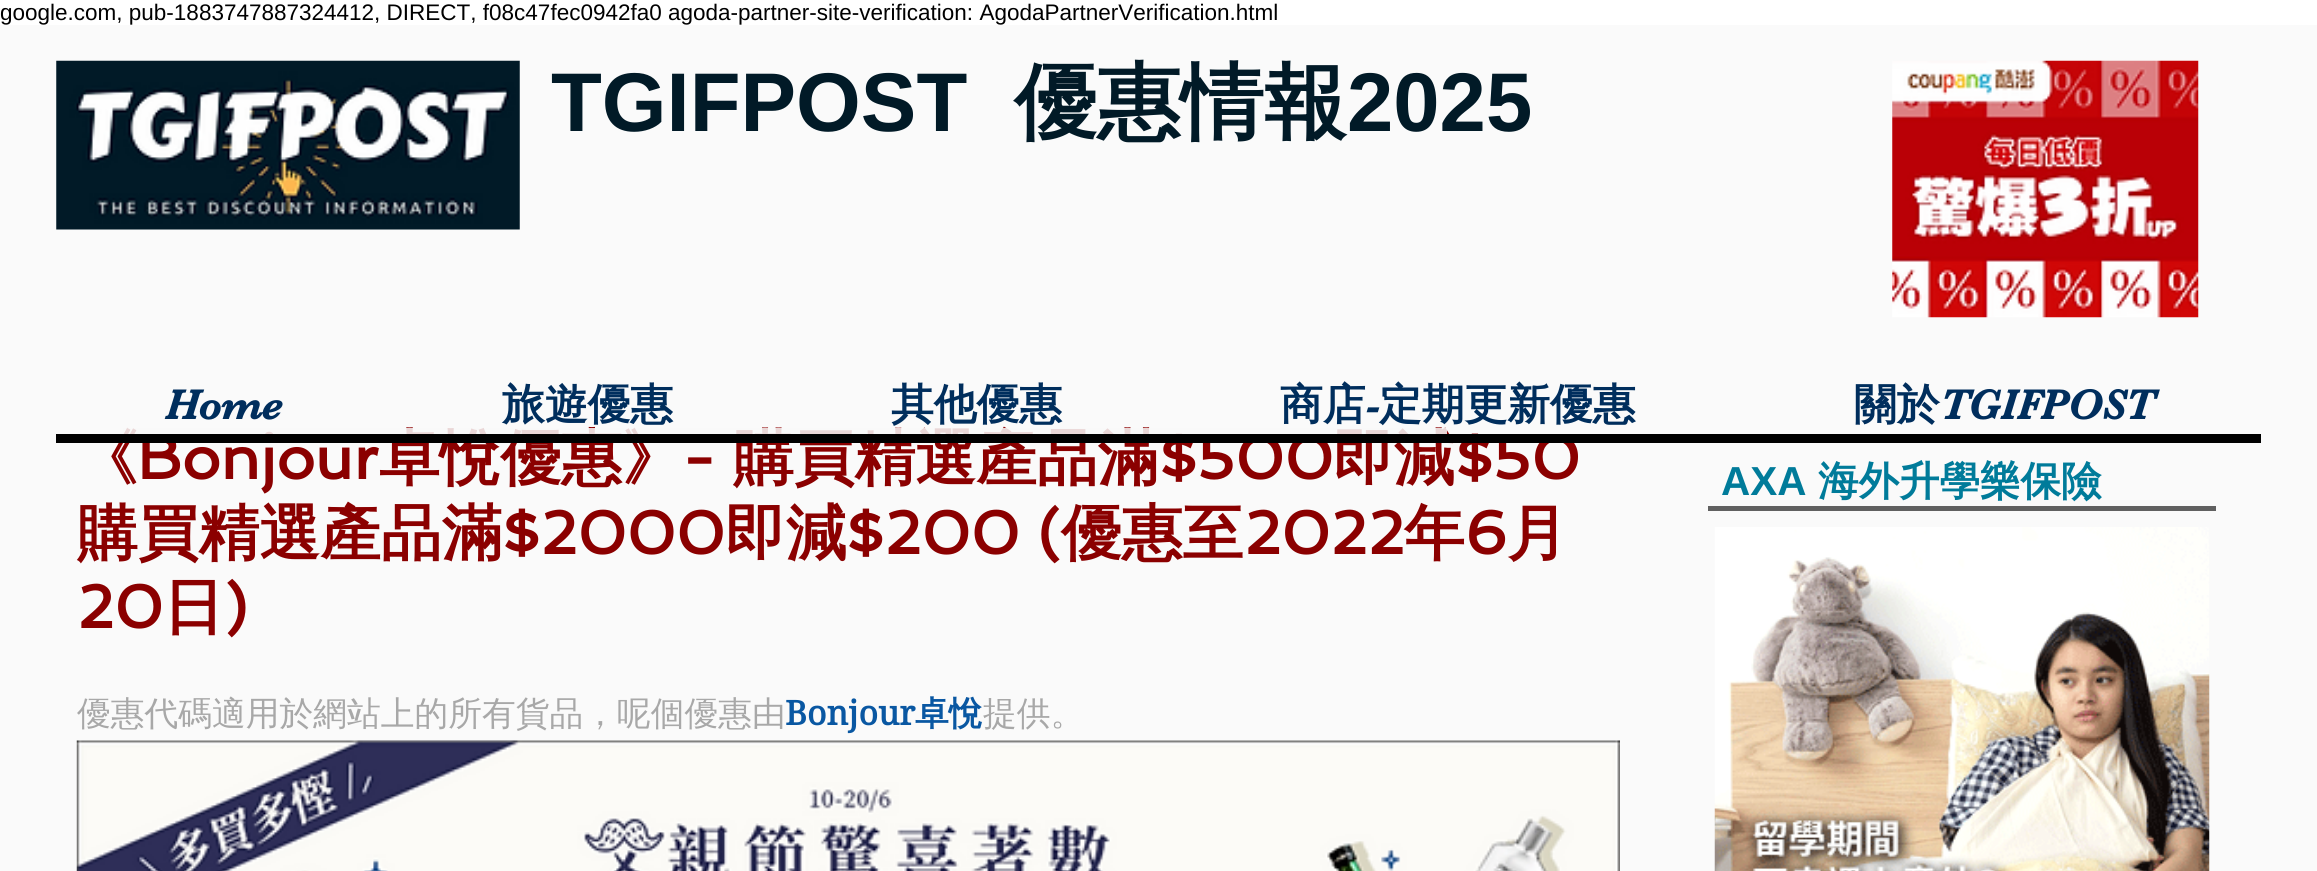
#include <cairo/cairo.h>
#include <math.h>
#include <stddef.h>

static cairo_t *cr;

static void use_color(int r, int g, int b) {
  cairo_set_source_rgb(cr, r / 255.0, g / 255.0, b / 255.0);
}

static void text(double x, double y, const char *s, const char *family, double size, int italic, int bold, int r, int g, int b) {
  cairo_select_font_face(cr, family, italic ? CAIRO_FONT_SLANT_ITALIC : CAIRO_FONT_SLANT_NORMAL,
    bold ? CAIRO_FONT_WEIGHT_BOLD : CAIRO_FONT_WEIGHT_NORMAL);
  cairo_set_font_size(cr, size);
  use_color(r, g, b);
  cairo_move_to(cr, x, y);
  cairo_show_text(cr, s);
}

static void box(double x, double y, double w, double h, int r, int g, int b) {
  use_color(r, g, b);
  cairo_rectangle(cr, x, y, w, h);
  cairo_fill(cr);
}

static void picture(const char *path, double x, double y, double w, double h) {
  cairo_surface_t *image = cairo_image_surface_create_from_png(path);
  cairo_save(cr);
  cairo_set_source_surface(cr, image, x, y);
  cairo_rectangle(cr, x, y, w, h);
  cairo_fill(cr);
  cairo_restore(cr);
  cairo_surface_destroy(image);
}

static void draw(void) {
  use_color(255, 255, 255);
  cairo_paint(cr);
  box(0, 25, 2317, 846, 250, 250, 250);
  picture("img_01.png", 56, 60, 464, 170);
  picture("img_02.png", 1892, 60, 307, 258);
  picture("img_03.png", 76, 740, 1544, 131);
  box(1708, 506, 508, 5, 96, 96, 96);
  picture("img_04.png", 1714, 527, 496, 344);
  text(0, 20, "google.com, pub-1883747887324412, DIRECT, f08c47fec0942fa0 agoda-partner-site-verification: AgodaPartnerVerification.html", "Liberation Sans", 22.5, 0, 0, 0, 0, 0);
  text(551, 131, "TGIFPOST", "Liberation Sans", 83.25, 0, 1, 1, 26, 39);
  text(1014, 131, "優惠情報", "WenQuanYi Zen Hei", 83.25, 0, 1, 1, 26, 39);
  text(1347, 131, "2025", "Liberation Sans", 83.25, 0, 1, 1, 26, 39);
  text(165, 419, "Home", "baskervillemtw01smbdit", 42.75, 0, 1, 0, 46, 93);
  text(502, 419, "旅遊優惠", "WenQuanYi Zen Hei", 42.75, 0, 1, 0, 46, 93);
  text(891, 419, "其他優惠", "WenQuanYi Zen Hei", 42.75, 0, 1, 0, 46, 93);
  text(1280, 419, "商店", "WenQuanYi Zen Hei", 42.75, 0, 1, 0, 46, 93);
  text(1366, 419, "-", "baskervillemtw01smbdit", 42.75, 0, 1, 0, 46, 93);
  text(1379, 419, "定期更新優惠", "WenQuanYi Zen Hei", 42.75, 0, 1, 0, 46, 93);
  text(1854, 419, "關於", "WenQuanYi Zen Hei", 42.75, 0, 1, 0, 46, 93);
  text(1940, 419, "TGIFPOST", "baskervillemtw01smbdit", 42.75, 0, 1, 0, 46, 93);
  text(77, 479, "《", "WenQuanYi Zen Hei", 60.75, 0, 1, 139, 0, 0);
  text(137, 479, "Bonjour", "Spinnaker", 60.75, 0, 1, 139, 0, 0);
  text(379, 479, "卓悅優惠》", "WenQuanYi Zen Hei", 60.75, 0, 1, 139, 0, 0);
  text(682, 479, "-", "Spinnaker", 60.75, 0, 1, 139, 0, 0);
  text(733, 479, "購買精選產品滿", "WenQuanYi Zen Hei", 60.75, 0, 1, 139, 0, 0);
  text(1159, 479, "$500", "Spinnaker", 60.75, 0, 1, 139, 0, 0);
  text(1333, 479, "即減", "WenQuanYi Zen Hei", 60.75, 0, 1, 139, 0, 0);
  cairo_set_source_rgba(cr, 0.98, 0.98, 0.98, 0.86);
  cairo_rectangle(cr, 123, 428, 1324, 6);
  cairo_fill(cr);
  text(1455, 479, "$50", "Spinnaker", 60.75, 0, 1, 139, 0, 0);
  use_color(0, 0, 0);
  cairo_new_path(cr);
  cairo_move_to(cr, 56, 387);
  cairo_line_to(cr, 56, 443);
  cairo_line_to(cr, 2261, 443);
  cairo_line_to(cr, 2261, 434);
  cairo_line_to(cr, 56, 434);
  cairo_close_path(cr);
  cairo_fill(cr);
  text(77, 554, "購買精選產品滿", "WenQuanYi Zen Hei", 60.75, 0, 1, 139, 0, 0);
  text(502, 554, "$2000", "Spinnaker", 60.75, 0, 1, 139, 0, 0);
  text(725, 554, "即減", "WenQuanYi Zen Hei", 60.75, 0, 1, 139, 0, 0);
  text(846, 554, "$200 (", "Spinnaker", 60.75, 0, 1, 139, 0, 0);
  text(1061, 554, "優惠至", "WenQuanYi Zen Hei", 60.75, 0, 1, 139, 0, 0);
  text(1244, 554, "2022", "Spinnaker", 60.75, 0, 1, 139, 0, 0);
  text(1404, 554, "年", "WenQuanYi Zen Hei", 60.75, 0, 1, 139, 0, 0);
  text(1465, 554, "6", "Spinnaker", 60.75, 0, 1, 139, 0, 0);
  text(1507, 554, "月", "WenQuanYi Zen Hei", 60.75, 0, 1, 139, 0, 0);
  text(77, 628, "20", "Spinnaker", 60.75, 0, 1, 139, 0, 0);
  text(163, 628, "日", "WenQuanYi Zen Hei", 60.75, 0, 1, 139, 0, 0);
  text(224, 628, ")", "Spinnaker", 60.75, 0, 1, 139, 0, 0);
  text(77, 725, "優惠代碼適用於網站上的所有貨品，呢個優惠由", "WenQuanYi Zen Hei Medium", 33.75, 0, 0, 168, 168, 168);
  text(785, 725, "Bonjour", "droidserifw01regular", 33.75, 0, 1, 9, 87, 162);
  text(915, 725, "卓悅", "WenQuanYi Zen Hei", 33.75, 0, 1, 9, 87, 162);
  text(983, 725, "提供。", "WenQuanYi Zen Hei Medium", 33.75, 0, 0, 168, 168, 168);
  text(1721, 495, "AXA", "Liberation Sans", 40.5, 0, 1, 0, 123, 154);
  text(1818, 495, "海外升學樂保險", "WenQuanYi Zen Hei", 40.5, 0, 1, 0, 123, 154);
}

int main(void) {
  cairo_surface_t *surface = cairo_image_surface_create(CAIRO_FORMAT_RGB24, 2317, 871);
  cr = cairo_create(surface);
  cairo_font_options_t *options = cairo_font_options_create();
  cairo_font_options_set_hint_metrics(options, CAIRO_HINT_METRICS_OFF);
  cairo_font_options_set_hint_style(options, CAIRO_HINT_STYLE_NONE);
  cairo_set_font_options(cr, options);
  cairo_set_miter_limit(cr, 4);
  draw();
  cairo_surface_write_to_png(surface, "out.png");
  cairo_font_options_destroy(options);
  cairo_destroy(cr);
  cairo_surface_destroy(surface);
  return 0;
}
